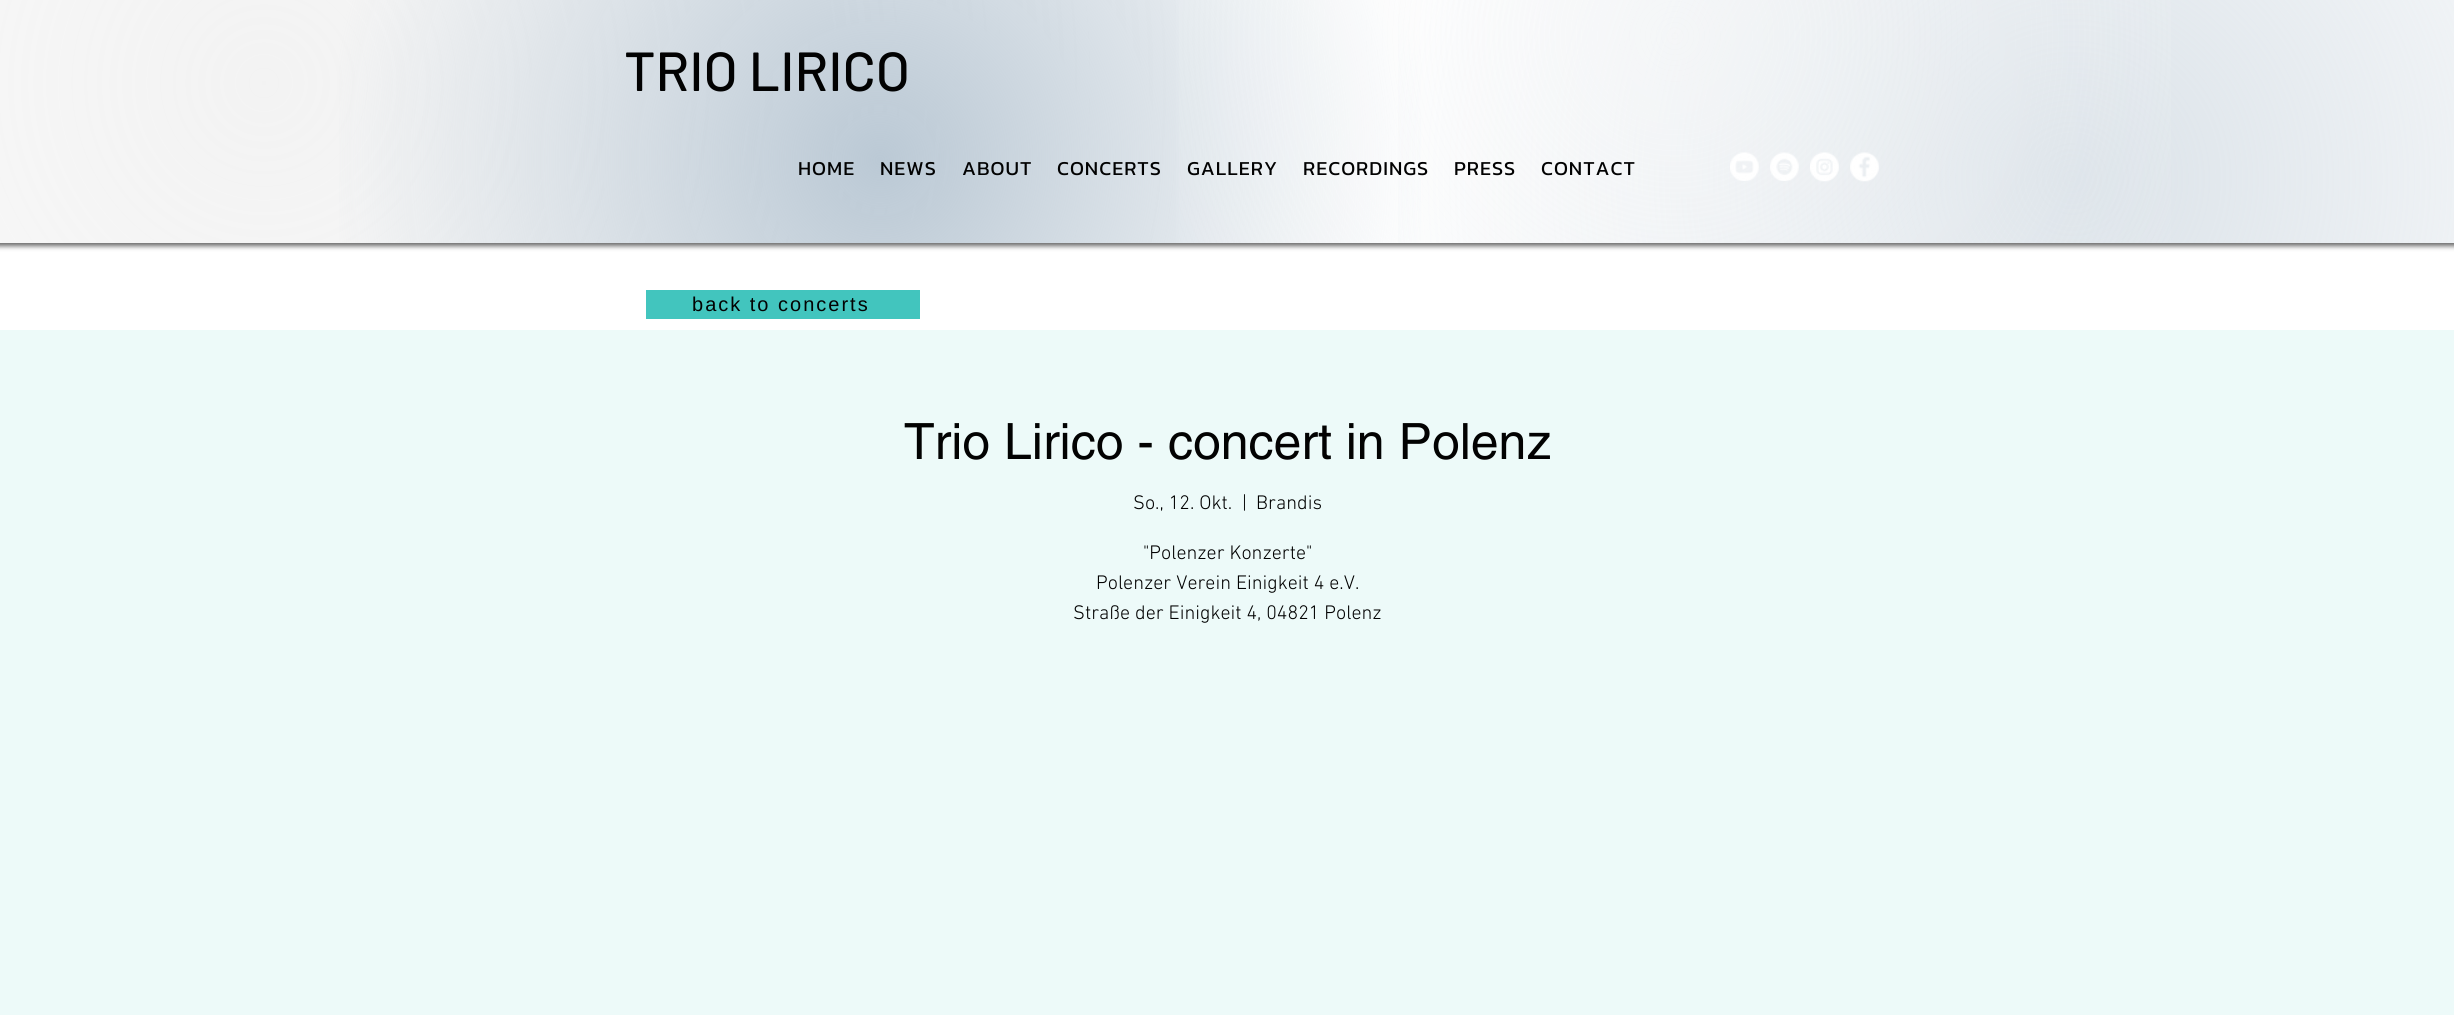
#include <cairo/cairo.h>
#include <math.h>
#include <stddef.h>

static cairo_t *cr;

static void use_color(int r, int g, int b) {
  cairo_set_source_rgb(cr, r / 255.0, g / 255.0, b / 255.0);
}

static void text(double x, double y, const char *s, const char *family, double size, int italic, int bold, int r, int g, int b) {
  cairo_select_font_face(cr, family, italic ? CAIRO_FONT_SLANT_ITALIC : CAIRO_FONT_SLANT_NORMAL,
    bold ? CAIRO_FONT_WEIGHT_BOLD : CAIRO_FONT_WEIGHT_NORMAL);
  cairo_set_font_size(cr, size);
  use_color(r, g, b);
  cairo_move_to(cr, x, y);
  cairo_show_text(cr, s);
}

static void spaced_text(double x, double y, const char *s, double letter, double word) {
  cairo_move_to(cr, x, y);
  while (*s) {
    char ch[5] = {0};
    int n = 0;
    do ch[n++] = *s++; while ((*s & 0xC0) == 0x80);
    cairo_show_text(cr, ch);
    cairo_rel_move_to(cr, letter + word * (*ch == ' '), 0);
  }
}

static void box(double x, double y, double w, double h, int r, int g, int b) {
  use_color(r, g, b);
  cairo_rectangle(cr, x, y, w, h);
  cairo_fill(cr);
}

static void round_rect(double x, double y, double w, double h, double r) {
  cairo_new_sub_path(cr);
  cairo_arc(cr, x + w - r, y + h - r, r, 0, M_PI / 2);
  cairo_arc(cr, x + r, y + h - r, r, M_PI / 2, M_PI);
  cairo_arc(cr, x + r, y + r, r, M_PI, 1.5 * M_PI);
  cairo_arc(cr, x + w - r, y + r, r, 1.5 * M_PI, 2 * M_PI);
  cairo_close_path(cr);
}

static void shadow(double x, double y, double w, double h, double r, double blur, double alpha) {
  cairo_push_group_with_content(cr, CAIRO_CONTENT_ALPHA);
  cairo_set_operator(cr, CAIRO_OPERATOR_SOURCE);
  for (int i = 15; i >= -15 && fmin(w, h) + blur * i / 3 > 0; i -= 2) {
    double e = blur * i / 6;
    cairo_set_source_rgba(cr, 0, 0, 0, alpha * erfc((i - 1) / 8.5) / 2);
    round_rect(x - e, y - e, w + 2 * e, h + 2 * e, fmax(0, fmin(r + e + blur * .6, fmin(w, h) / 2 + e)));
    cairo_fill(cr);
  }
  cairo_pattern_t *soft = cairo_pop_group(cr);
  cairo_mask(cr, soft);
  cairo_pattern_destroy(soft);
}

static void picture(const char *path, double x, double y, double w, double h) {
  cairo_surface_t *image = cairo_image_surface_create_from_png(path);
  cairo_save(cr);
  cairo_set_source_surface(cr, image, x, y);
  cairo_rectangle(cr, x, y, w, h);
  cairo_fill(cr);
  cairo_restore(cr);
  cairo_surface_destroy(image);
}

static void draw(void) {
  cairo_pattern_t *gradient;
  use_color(255, 255, 255);
  cairo_paint(cr);
  cairo_save(cr);
  cairo_set_fill_rule(cr, CAIRO_FILL_RULE_EVEN_ODD);
  cairo_new_path(cr);
  cairo_move_to(cr, 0, 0);
  cairo_line_to(cr, 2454, 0);
  cairo_line_to(cr, 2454, 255);
  cairo_line_to(cr, 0, 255);
  cairo_close_path(cr);
  cairo_move_to(cr, 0, 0);
  cairo_line_to(cr, 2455, 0);
  cairo_line_to(cr, 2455, 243);
  cairo_line_to(cr, 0, 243);
  cairo_close_path(cr);
  cairo_clip(cr);
  use_color(0, 0, 0);
  shadow(-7, -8, 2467, 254, 0, 2.5, 0.6);
  cairo_restore(cr);
  gradient = cairo_pattern_create_radial(264, 83, 0, 264, 83, 2197);
  cairo_pattern_add_color_stop_rgba(gradient, 0, 0.859, 0.859, 0.859, 0.34);
  cairo_pattern_add_color_stop_rgba(gradient, 0.5, 0.859, 0.859, 0.859, 0);
  cairo_set_source(cr, gradient);
  cairo_pattern_destroy(gradient);
  cairo_rectangle(cr, 0, 0, 1176, 243);
  cairo_fill(cr);
  gradient = cairo_pattern_create_radial(2072, 179, 0, 2072, 179, 2080);
  cairo_pattern_add_color_stop_rgba(gradient, 0, 0.733, 0.788, 0.835, 0.53);
  cairo_pattern_add_color_stop_rgba(gradient, 0.35, 0.733, 0.788, 0.835, 0);
  cairo_set_source(cr, gradient);
  cairo_pattern_destroy(gradient);
  cairo_rectangle(cr, 1398, 0, 1056, 243);
  cairo_fill(cr);
  gradient = cairo_pattern_create_radial(880, 160, 0, 880, 160, 1583);
  cairo_pattern_add_color_stop_rgba(gradient, 0, 0.733, 0.788, 0.835, 1);
  cairo_pattern_add_color_stop_rgba(gradient, 0.35, 0.733, 0.788, 0.835, 0);
  cairo_set_source(cr, gradient);
  cairo_pattern_destroy(gradient);
  cairo_rectangle(cr, 339, 0, 1082, 243);
  cairo_fill(cr);
  gradient = cairo_pattern_create_radial(1675, 36, 0, 1675, 36, 1687);
  cairo_pattern_add_color_stop_rgba(gradient, 0, 0.98, 0.98, 0.98, 0.44);
  cairo_pattern_add_color_stop_rgba(gradient, 0.35, 0.98, 0.98, 0.98, 0);
  cairo_set_source(cr, gradient);
  cairo_pattern_destroy(gradient);
  cairo_rectangle(cr, 1179, 0, 992, 243);
  cairo_fill(cr);
  picture("img_01.png", 1730, 152, 29, 29);
  picture("img_02.png", 1770, 152, 29, 29);
  picture("img_03.png", 1810, 152, 29, 30);
  picture("img_04.png", 1850, 152, 29, 30);
  box(646, 290, 274, 29, 66, 197, 190);
  box(0, 330, 2454, 685, 237, 250, 249);
  text(624, 91, "TRIO LIRICO", "Barlow Medium", 55, 0, 0, 2, 2, 2);
  cairo_select_font_face(cr, "Kanit", CAIRO_FONT_SLANT_NORMAL, CAIRO_FONT_WEIGHT_NORMAL);
  cairo_set_font_size(cr, 20);
  spaced_text(798, 175, "HOME", 1, 0);
  spaced_text(880, 175, "NEWS", 1, 0);
  spaced_text(962, 175, "ABOUT", 1, 0);
  spaced_text(1057, 175, "CONCERTS", 1, 0);
  spaced_text(1187, 175, "GALLERY", 1, 0);
  spaced_text(1303, 175, "RECORDINGS", 1, 0);
  spaced_text(1454, 175, "PRESS", 1, 0);
  spaced_text(1541, 175, "CONTACT", 1, 0);
  cairo_select_font_face(cr, "Liberation Sans", CAIRO_FONT_SLANT_NORMAL, CAIRO_FONT_WEIGHT_NORMAL);
  spaced_text(692, 311, "back to concerts", 2, 0);
  text(904, 459, "Trio Lirico - concert in Polenz", "helvetica", 50, 0, 0, 2, 2, 2);
  text(1133, 509, "So., 12. Okt.", "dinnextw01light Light", 20, 0, 0, 2, 2, 2);
  text(1242, 509, "|", "dinnextw01light Light", 20, 0, 0, 2, 2, 2);
  text(1256, 509, "Brandis", "dinnextw01light Light", 20, 0, 0, 2, 2, 2);
  text(1143, 559, "\"Polenzer Konzerte\"", "dinnextw01light Light", 20, 0, 0, 2, 2, 2);
  text(1096, 589, "Polenzer Verein Einigkeit 4 e.V.", "dinnextw01light Light", 20, 0, 0, 2, 2, 2);
  text(1073, 619, "Straße der Einigkeit 4, 04821 Polenz", "dinnextw01light Light", 20, 0, 0, 2, 2, 2);
}

int main(void) {
  cairo_surface_t *surface = cairo_image_surface_create(CAIRO_FORMAT_RGB24, 2454, 1015);
  cr = cairo_create(surface);
  cairo_font_options_t *options = cairo_font_options_create();
  cairo_font_options_set_hint_metrics(options, CAIRO_HINT_METRICS_OFF);
  cairo_font_options_set_hint_style(options, CAIRO_HINT_STYLE_NONE);
  cairo_set_font_options(cr, options);
  cairo_set_miter_limit(cr, 4);
  draw();
  cairo_surface_write_to_png(surface, "out.png");
  cairo_font_options_destroy(options);
  cairo_destroy(cr);
  cairo_surface_destroy(surface);
  return 0;
}
